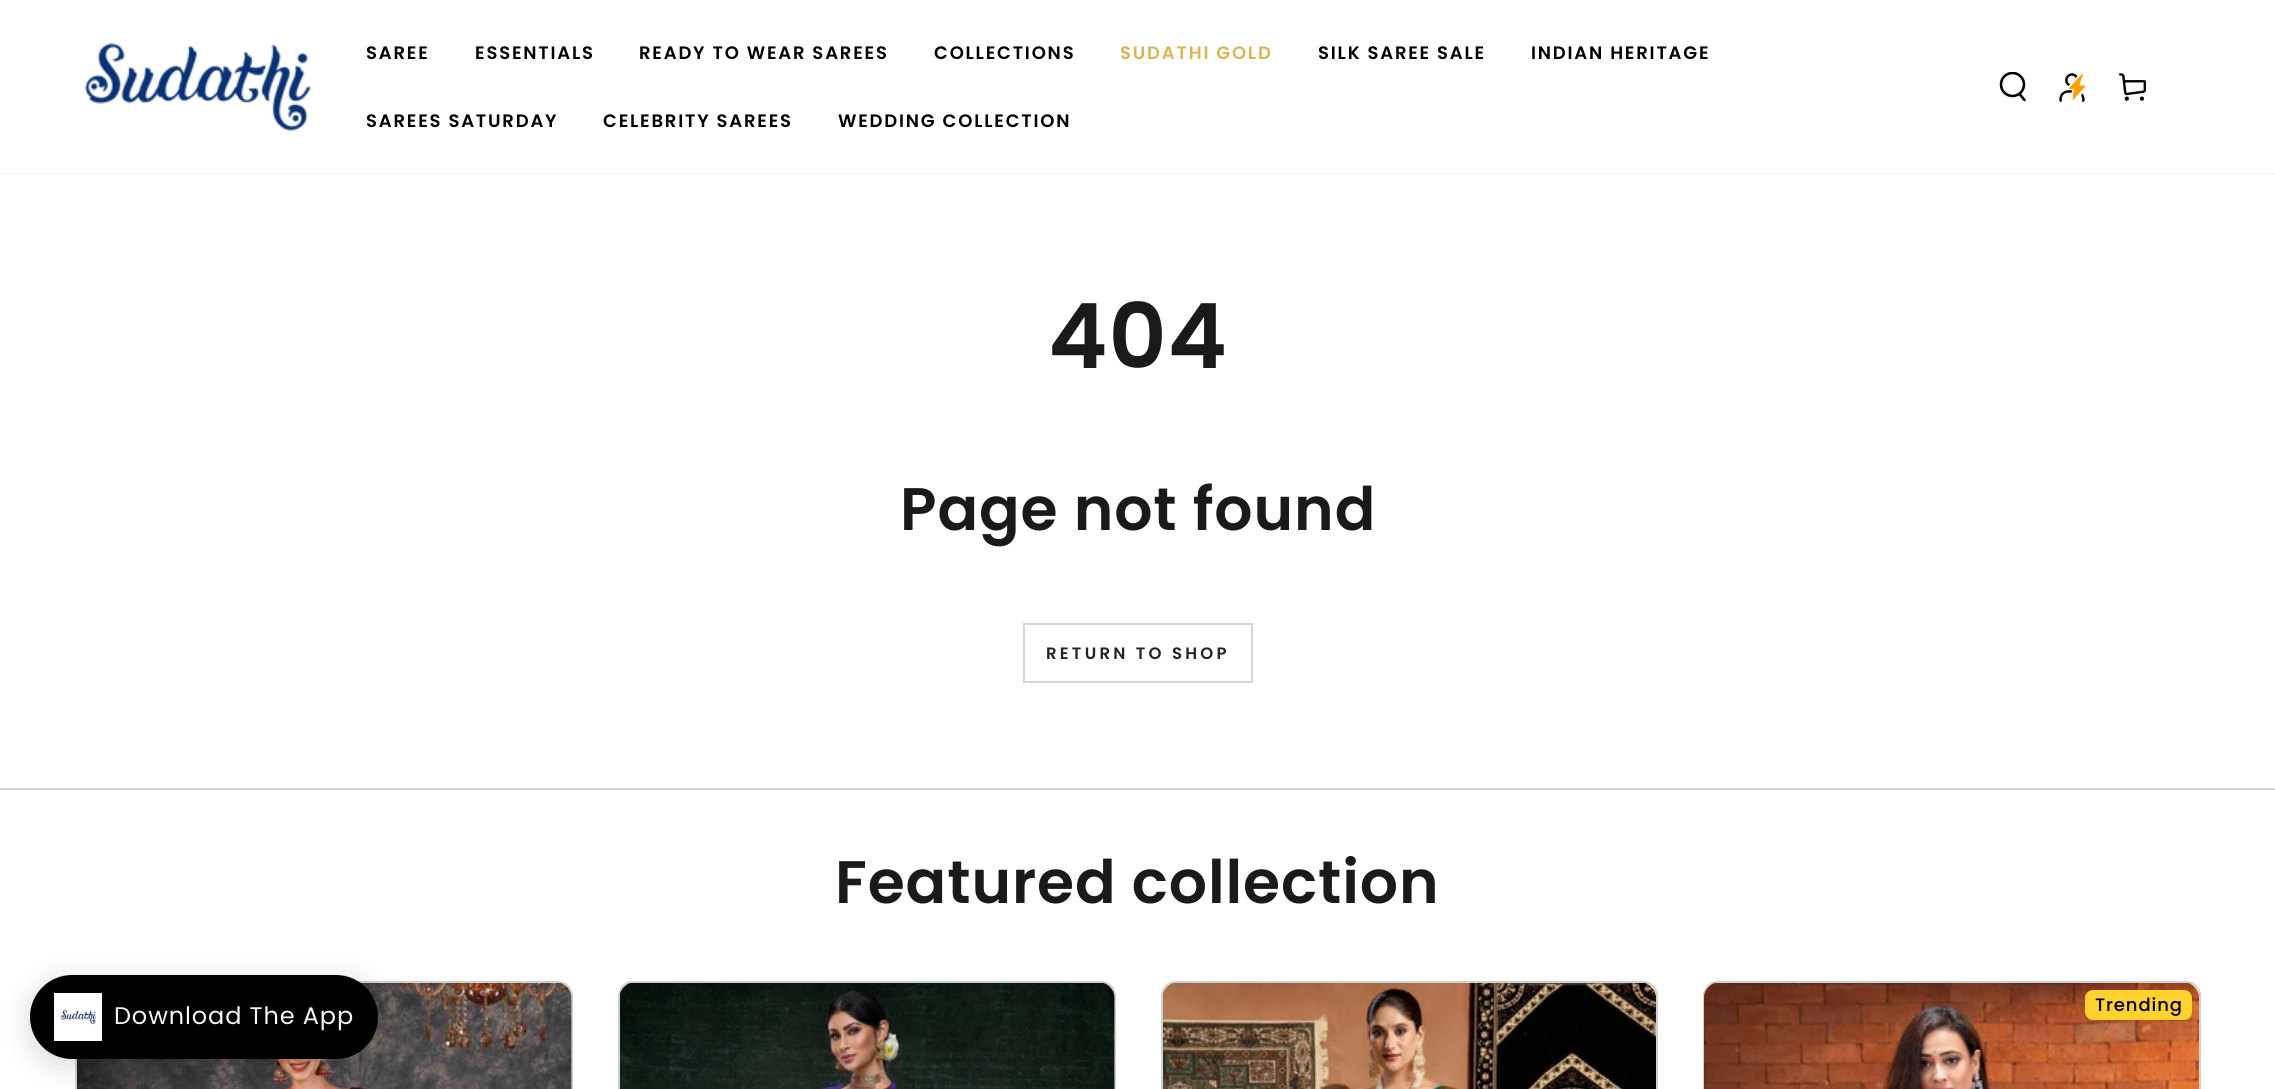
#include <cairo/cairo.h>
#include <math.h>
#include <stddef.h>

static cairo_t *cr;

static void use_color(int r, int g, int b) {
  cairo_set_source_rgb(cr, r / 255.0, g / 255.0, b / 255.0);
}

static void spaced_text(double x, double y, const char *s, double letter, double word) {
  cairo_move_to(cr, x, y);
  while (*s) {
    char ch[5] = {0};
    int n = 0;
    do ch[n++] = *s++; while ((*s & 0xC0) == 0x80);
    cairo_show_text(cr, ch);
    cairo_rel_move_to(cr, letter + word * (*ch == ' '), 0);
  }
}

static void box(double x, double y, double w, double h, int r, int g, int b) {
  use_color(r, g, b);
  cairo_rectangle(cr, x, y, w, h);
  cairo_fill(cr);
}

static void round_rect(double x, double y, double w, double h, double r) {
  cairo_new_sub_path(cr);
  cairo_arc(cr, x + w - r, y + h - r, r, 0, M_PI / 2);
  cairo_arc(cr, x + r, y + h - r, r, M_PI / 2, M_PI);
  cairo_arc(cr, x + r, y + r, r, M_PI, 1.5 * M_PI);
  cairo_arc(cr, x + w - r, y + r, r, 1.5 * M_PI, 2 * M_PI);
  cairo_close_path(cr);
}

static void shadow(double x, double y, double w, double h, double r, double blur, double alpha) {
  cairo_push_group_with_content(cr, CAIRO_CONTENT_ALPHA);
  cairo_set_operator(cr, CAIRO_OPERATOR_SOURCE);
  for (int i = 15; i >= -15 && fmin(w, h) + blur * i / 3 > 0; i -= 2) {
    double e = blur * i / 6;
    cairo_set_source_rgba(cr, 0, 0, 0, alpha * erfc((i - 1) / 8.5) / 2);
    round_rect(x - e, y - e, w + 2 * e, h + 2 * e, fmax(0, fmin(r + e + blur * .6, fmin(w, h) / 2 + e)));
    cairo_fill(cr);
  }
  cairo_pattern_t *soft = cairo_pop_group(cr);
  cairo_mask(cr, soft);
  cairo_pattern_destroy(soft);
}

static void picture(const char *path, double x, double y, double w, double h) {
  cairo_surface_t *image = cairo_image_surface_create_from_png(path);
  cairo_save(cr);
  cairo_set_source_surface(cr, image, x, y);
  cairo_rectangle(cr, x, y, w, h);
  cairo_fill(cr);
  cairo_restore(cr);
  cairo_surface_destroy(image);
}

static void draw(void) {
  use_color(255, 255, 255);
  cairo_paint(cr);
  use_color(242, 242, 244);
  cairo_new_path(cr);
  cairo_move_to(cr, 0, 172);
  cairo_line_to(cr, 0, 174);
  cairo_line_to(cr, 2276, 174);
  cairo_line_to(cr, 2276, 2);
  cairo_line_to(cr, 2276, 172);
  cairo_close_path(cr);
  cairo_fill(cr);
  picture("img_01.png", 85, 43, 226, 88);
  cairo_save(cr);
  cairo_rectangle(cr, 1998, 72, 30, 30);
  cairo_clip(cr);
  cairo_arc(cr, 2012.5, 84.5, 11.5, 0, 2 * M_PI);
  use_color(0, 0, 0);
  cairo_set_line_width(cr, 2.6);
  cairo_stroke(cr);
  cairo_restore(cr);
  cairo_new_path(cr);
  cairo_move_to(cr, 2019.5, 94);
  cairo_line_to(cr, 2024.5, 100);
  use_color(0, 0, 0);
  cairo_set_line_width(cr, 2.6);
  cairo_set_line_cap(cr, CAIRO_LINE_CAP_ROUND);
  cairo_stroke(cr);
  picture("img_02.png", 2059, 73, 27, 29);
  picture("img_03.png", 2119, 73, 27, 28);
  box(0, 172, 2275, 1, 255, 255, 255);
  cairo_rectangle(cr, 1024, 624, 228, 58);
  use_color(210, 213, 217);
  cairo_set_line_width(cr, 2);
  cairo_set_line_cap(cr, CAIRO_LINE_CAP_BUTT);
  cairo_stroke(cr);
  box(0, 788, 2275, 2, 210, 213, 217);
  round_rect(76, 982, 496, 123, 14);
  use_color(208, 208, 208);
  cairo_stroke(cr);
  use_color(243, 243, 243);
  round_rect(77, 983, 495, 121, 15);
  cairo_fill(cr);
  picture("img_04.png", 77, 983, 495, 106);
  round_rect(619, 982, 496, 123, 14);
  use_color(208, 208, 208);
  cairo_stroke(cr);
  use_color(243, 243, 243);
  round_rect(620, 983, 495, 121, 15);
  cairo_fill(cr);
  picture("img_05.png", 620, 983, 495, 106);
  round_rect(1162, 982, 495, 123, 14);
  use_color(208, 208, 208);
  cairo_stroke(cr);
  picture("img_06.png", 1163, 983, 493, 106);
  round_rect(1704, 982, 496, 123, 14);
  cairo_stroke(cr);
  picture("img_07.png", 1704, 983, 495, 106);
  use_color(255, 210, 48);
  round_rect(2085, 990, 107, 30, 8);
  cairo_fill(cr);
  use_color(0, 0, 0);
  shadow(30, 981, 348, 84, 42, 15, 0.15);
  use_color(0, 0, 0);
  round_rect(30, 975, 348, 84, 42);
  cairo_fill(cr);
  picture("img_08.png", 54, 993, 48, 48);
  cairo_select_font_face(cr, "Poppins SemiBold", CAIRO_FONT_SLANT_NORMAL, CAIRO_FONT_WEIGHT_NORMAL);
  cairo_set_font_size(cr, 18);
  spaced_text(366, 59, "SAREE", 1.8, 0);
  spaced_text(475, 59, "ESSENTIALS", 1.8, 0);
  spaced_text(639, 59, "READY TO WEAR SAREES", 1.8, 0);
  spaced_text(934, 59, "COLLECTIONS", 1.8, 0);
  use_color(217, 181, 83);
  spaced_text(1120, 59, "SUDATHI GOLD", 1.8, 0);
  use_color(0, 0, 0);
  spaced_text(1318, 59, "SILK SAREE SALE", 1.8, 0);
  spaced_text(1531, 59, "INDIAN HERITAGE", 1.8, 0);
  spaced_text(366, 127, "SAREES SATURDAY", 1.8, 0);
  spaced_text(603, 127, "CELEBRITY SAREES", 1.8, 0);
  spaced_text(838, 127, "WEDDING COLLECTION", 1.8, 0);
  cairo_set_font_size(cr, 90);
  use_color(26, 27, 24);
  spaced_text(1048, 368, "404", 0.9, 0);
  cairo_set_font_size(cr, 60);
  spaced_text(900, 530, "Page not found", 0.9, 0);
  cairo_set_font_size(cr, 16.5);
  use_color(33, 35, 38);
  spaced_text(1046, 659, "RETURN TO SHOP", 3.25, 0);
  cairo_set_font_size(cr, 60);
  use_color(26, 27, 24);
  spaced_text(835, 903, "Featured collection", 0.9, 0);
  cairo_select_font_face(cr, "Poppins Medium", CAIRO_FONT_SLANT_NORMAL, CAIRO_FONT_WEIGHT_NORMAL);
  cairo_set_font_size(cr, 18);
  use_color(0, 0, 0);
  spaced_text(2095, 1011, "Trending", 0.9, 0);
  cairo_select_font_face(cr, "Poppins", CAIRO_FONT_SLANT_NORMAL, CAIRO_FONT_WEIGHT_NORMAL);
  cairo_set_font_size(cr, 24);
  use_color(248, 245, 245);
  spaced_text(114, 1024, "Download The App", 0.9, 0);
}

int main(void) {
  cairo_surface_t *surface = cairo_image_surface_create(CAIRO_FORMAT_RGB24, 2275, 1089);
  cr = cairo_create(surface);
  cairo_font_options_t *options = cairo_font_options_create();
  cairo_font_options_set_hint_metrics(options, CAIRO_HINT_METRICS_OFF);
  cairo_font_options_set_hint_style(options, CAIRO_HINT_STYLE_NONE);
  cairo_set_font_options(cr, options);
  cairo_set_miter_limit(cr, 4);
  draw();
  cairo_surface_write_to_png(surface, "out.png");
  cairo_font_options_destroy(options);
  cairo_destroy(cr);
  cairo_surface_destroy(surface);
  return 0;
}
